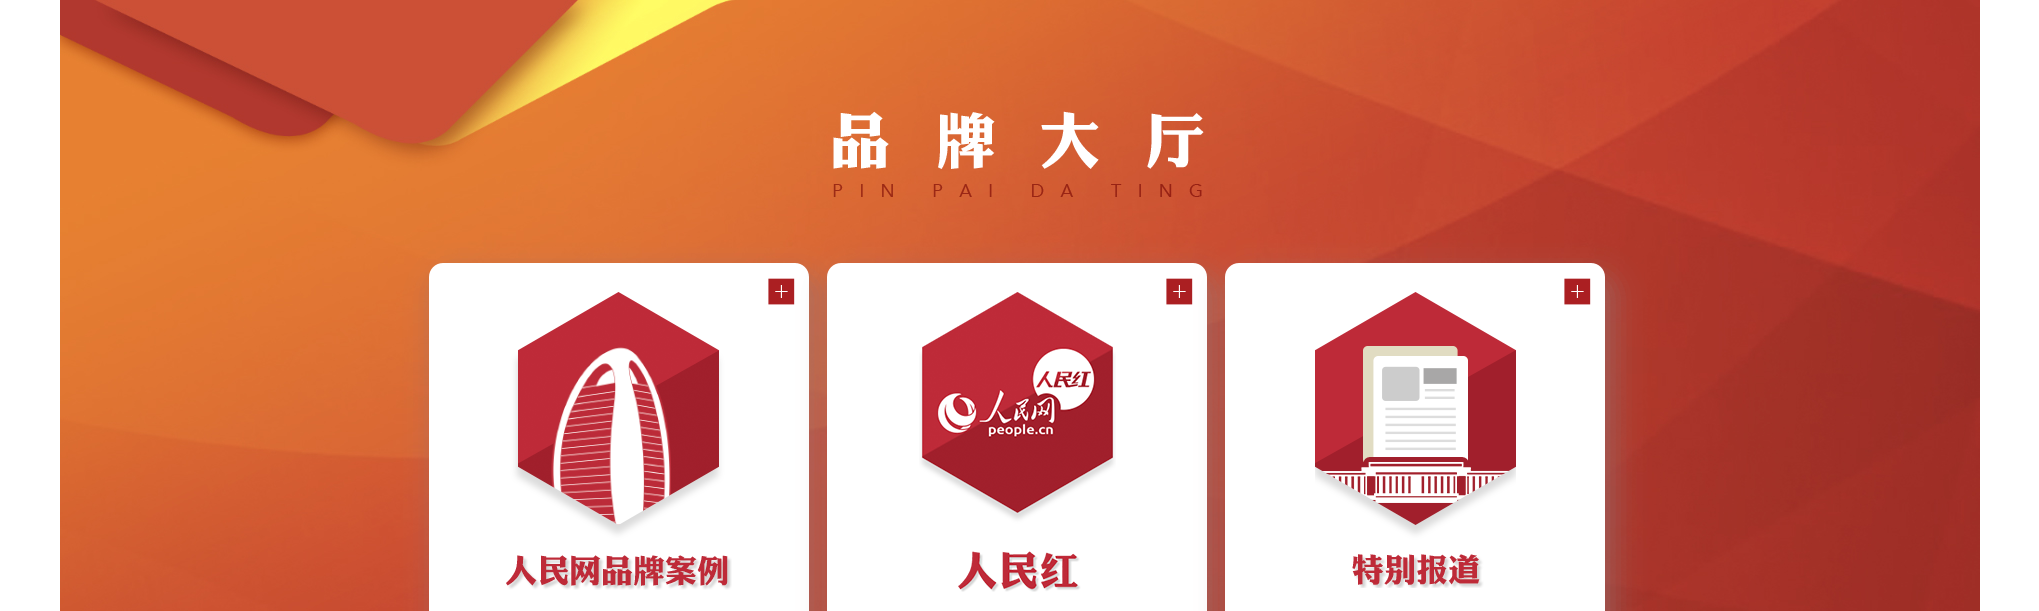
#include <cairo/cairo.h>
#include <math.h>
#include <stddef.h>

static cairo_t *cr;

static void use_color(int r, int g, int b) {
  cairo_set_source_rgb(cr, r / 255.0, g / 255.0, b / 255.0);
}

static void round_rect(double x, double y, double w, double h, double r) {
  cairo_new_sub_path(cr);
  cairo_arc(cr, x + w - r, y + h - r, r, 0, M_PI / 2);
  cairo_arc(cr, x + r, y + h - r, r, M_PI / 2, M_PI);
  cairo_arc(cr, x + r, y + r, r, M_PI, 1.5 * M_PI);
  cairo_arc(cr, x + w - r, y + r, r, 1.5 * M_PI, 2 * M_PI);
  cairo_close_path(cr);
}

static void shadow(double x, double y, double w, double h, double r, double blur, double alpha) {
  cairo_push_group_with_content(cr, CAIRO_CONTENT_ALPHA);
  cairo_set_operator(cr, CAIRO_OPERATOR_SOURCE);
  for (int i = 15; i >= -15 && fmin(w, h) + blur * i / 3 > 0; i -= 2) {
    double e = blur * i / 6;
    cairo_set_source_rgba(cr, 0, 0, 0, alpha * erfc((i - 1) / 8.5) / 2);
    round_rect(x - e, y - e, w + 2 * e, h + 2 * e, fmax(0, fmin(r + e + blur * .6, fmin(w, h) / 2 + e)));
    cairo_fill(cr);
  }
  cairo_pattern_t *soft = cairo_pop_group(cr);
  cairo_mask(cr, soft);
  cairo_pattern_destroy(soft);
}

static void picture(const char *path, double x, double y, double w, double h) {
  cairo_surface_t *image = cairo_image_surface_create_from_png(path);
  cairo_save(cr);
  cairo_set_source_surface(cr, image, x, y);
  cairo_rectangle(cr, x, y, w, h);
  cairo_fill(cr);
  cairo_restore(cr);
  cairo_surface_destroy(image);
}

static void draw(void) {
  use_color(255, 255, 255);
  cairo_paint(cr);
  picture("img_01.png", 60, 0, 1920, 611);
  picture("img_02.png", 833, 111, 371, 86);
  use_color(152, 113, 113);
  shadow(437, 277, 380, 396, 14, 16, 0.7);
  use_color(255, 255, 255);
  round_rect(429, 263, 380, 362, 14);
  cairo_fill(cr);
  picture("img_03.png", 506, 292, 226, 298);
  picture("img_04.png", 768, 278, 27, 27);
  use_color(152, 113, 113);
  shadow(835, 277, 380, 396, 14, 16, 0.7);
  use_color(255, 255, 255);
  round_rect(827, 263, 380, 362, 14);
  cairo_fill(cr);
  picture("img_05.png", 919, 292, 197, 300);
  picture("img_04.png", 1166, 278, 27, 27);
  use_color(152, 113, 113);
  shadow(1233, 277, 380, 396, 14, 16, 0.7);
  use_color(255, 255, 255);
  round_rect(1225, 263, 380, 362, 14);
  cairo_fill(cr);
  picture("img_06.png", 1315, 292, 201, 296);
  picture("img_04.png", 1564, 278, 27, 27);
}

int main(void) {
  cairo_surface_t *surface = cairo_image_surface_create(CAIRO_FORMAT_RGB24, 2039, 611);
  cr = cairo_create(surface);
  cairo_font_options_t *options = cairo_font_options_create();
  cairo_font_options_set_hint_metrics(options, CAIRO_HINT_METRICS_OFF);
  cairo_font_options_set_hint_style(options, CAIRO_HINT_STYLE_NONE);
  cairo_set_font_options(cr, options);
  cairo_set_miter_limit(cr, 4);
  draw();
  cairo_surface_write_to_png(surface, "out.png");
  cairo_font_options_destroy(options);
  cairo_destroy(cr);
  cairo_surface_destroy(surface);
  return 0;
}
